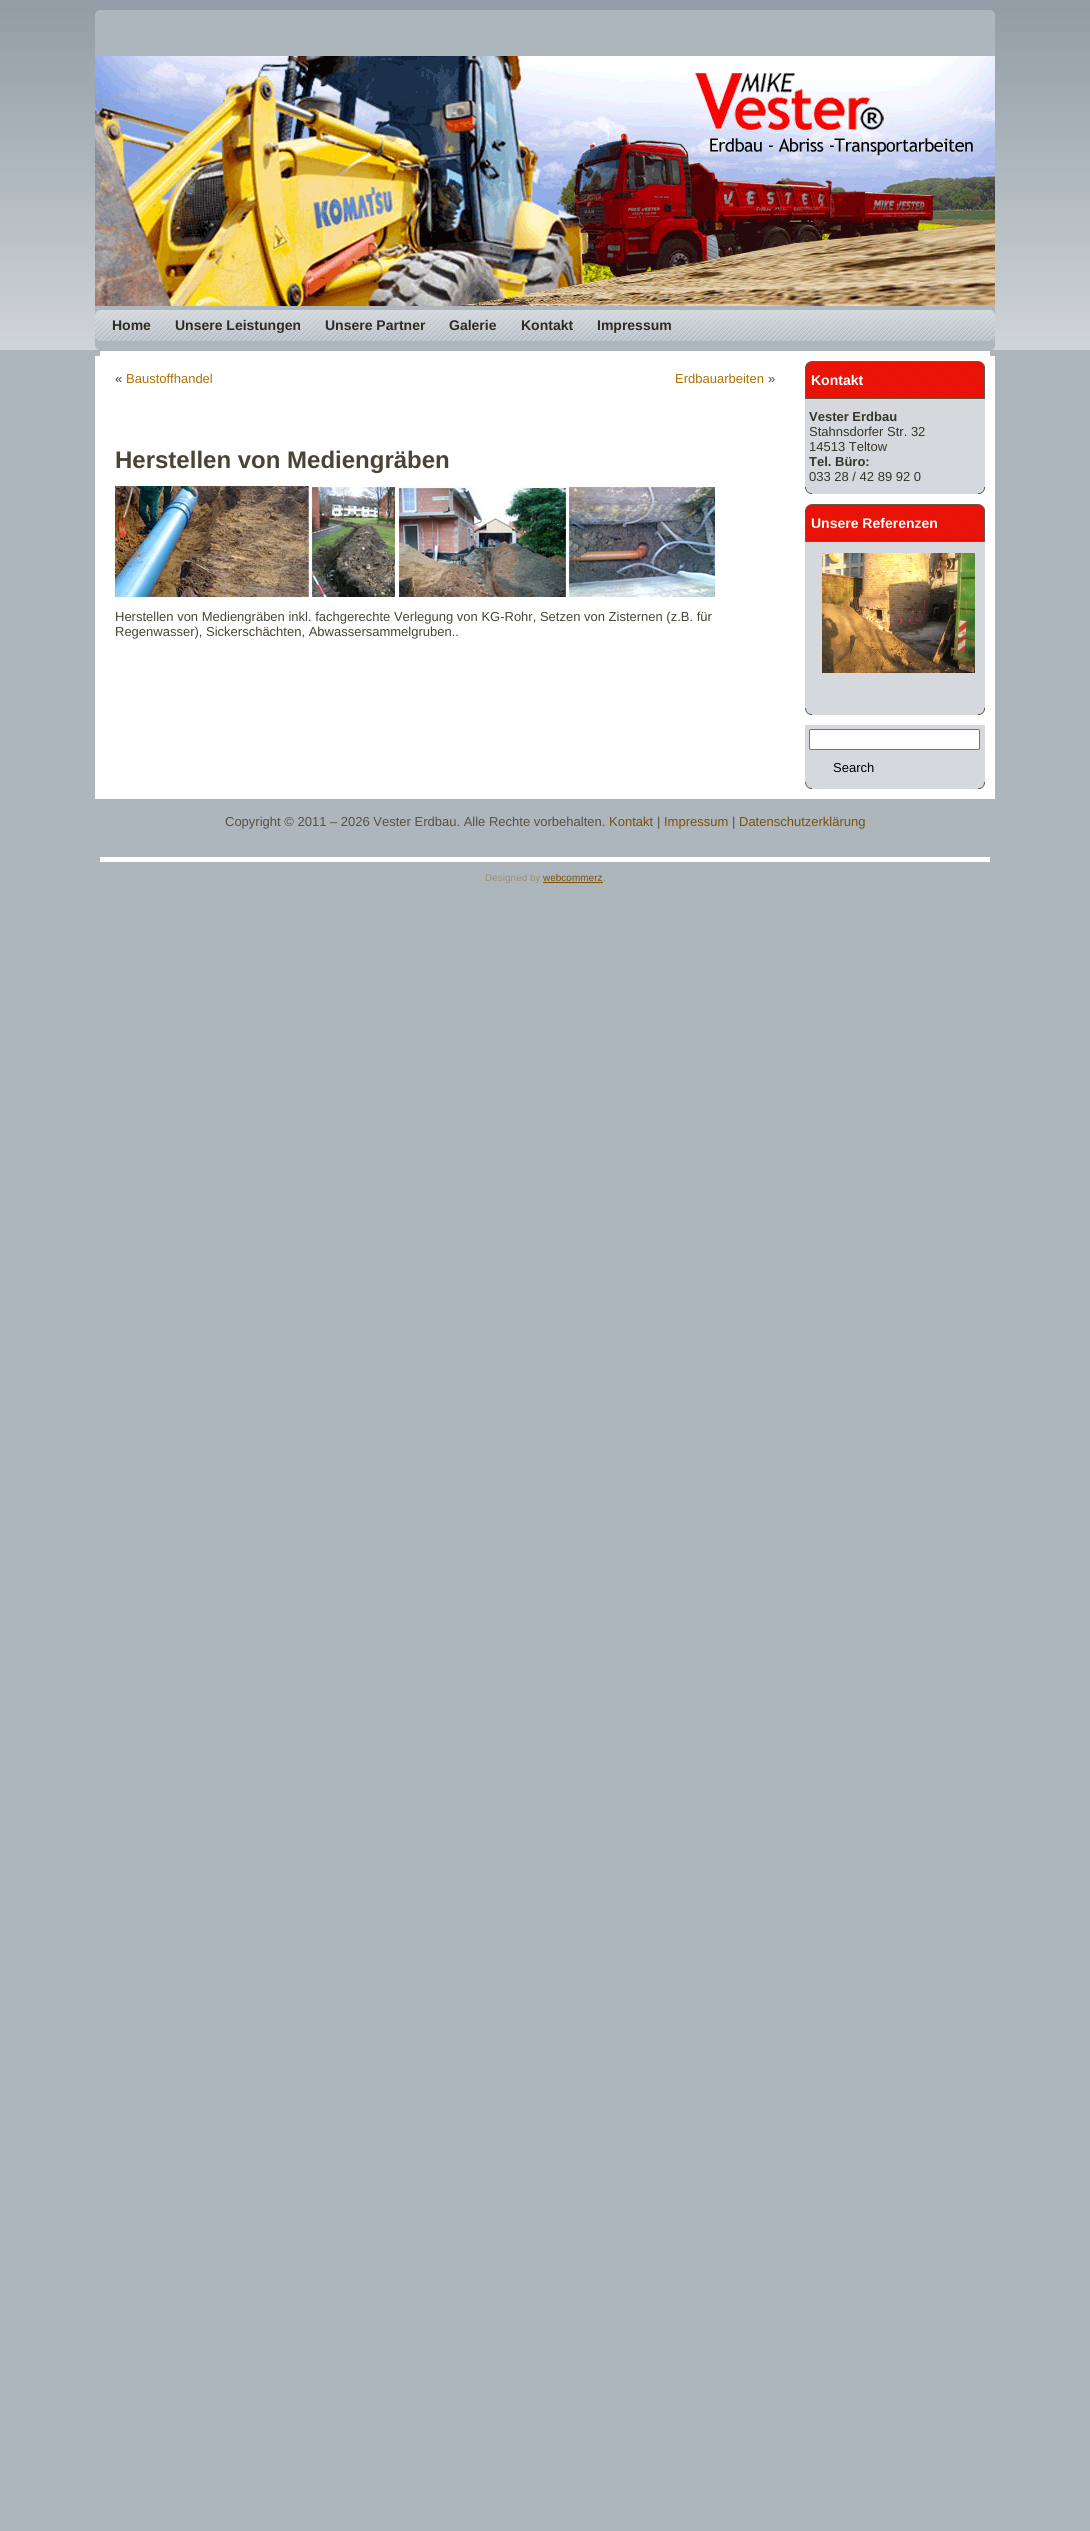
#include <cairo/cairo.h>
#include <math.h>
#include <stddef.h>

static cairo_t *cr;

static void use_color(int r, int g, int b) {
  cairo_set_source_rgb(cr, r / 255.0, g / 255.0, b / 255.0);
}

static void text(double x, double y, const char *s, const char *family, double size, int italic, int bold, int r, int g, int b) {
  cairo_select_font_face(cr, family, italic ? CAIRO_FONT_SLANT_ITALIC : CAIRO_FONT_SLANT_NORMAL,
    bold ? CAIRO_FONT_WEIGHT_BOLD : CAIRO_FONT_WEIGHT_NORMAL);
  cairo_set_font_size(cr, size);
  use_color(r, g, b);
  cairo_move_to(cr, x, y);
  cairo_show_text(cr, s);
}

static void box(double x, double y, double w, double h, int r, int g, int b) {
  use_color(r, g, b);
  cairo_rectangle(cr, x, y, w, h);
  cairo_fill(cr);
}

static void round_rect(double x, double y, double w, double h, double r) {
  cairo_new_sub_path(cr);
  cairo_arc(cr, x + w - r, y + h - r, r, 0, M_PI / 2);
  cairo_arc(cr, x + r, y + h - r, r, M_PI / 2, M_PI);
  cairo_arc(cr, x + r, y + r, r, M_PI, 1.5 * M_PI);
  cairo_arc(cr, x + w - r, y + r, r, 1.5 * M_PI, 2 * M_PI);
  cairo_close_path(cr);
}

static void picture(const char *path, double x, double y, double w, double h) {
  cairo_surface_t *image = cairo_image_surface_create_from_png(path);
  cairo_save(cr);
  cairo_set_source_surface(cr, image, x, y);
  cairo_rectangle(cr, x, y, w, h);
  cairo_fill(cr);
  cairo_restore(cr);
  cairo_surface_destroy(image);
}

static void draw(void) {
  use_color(173, 182, 189);
  cairo_paint(cr);
  picture("img_01.png", 0, 0, 1090, 350);
  picture("img_02.png", 95, 10, 900, 340);
  picture("img_03.png", 100, 55, 890, 256);
  picture("img_04.png", 95, 310, 895, 31);
  picture("img_05.png", 990, 310, 5, 31);
  box(100, 351, 890, 5, 255, 255, 255);
  box(95, 356, 5, 443, 255, 255, 255);
  box(100, 356, 895, 443, 255, 255, 255);
  picture("img_06.png", 115, 486, 600, 111);
  picture("img_07.png", 805, 361, 173, 38);
  picture("img_08.png", 978, 361, 7, 38);
  box(805, 399, 7, 88, 213, 217, 221);
  box(812, 399, 173, 7, 213, 217, 221);
  box(812, 406, 173, 81, 213, 217, 221);
  picture("img_09.png", 805, 487, 7, 7);
  box(812, 487, 166, 7, 213, 217, 221);
  picture("img_10.png", 978, 487, 7, 7);
  picture("img_07.png", 805, 504, 173, 38);
  picture("img_08.png", 978, 504, 7, 38);
  box(805, 542, 7, 166, 213, 217, 221);
  box(812, 542, 173, 7, 213, 217, 221);
  box(812, 549, 173, 159, 213, 217, 221);
  picture("img_11.png", 822, 553, 153, 120);
  picture("img_09.png", 805, 708, 7, 7);
  box(812, 708, 166, 7, 213, 217, 221);
  picture("img_10.png", 978, 708, 7, 7);
  box(805, 725, 7, 57, 213, 217, 221);
  box(812, 725, 166, 4, 213, 217, 221);
  box(978, 725, 7, 57, 213, 217, 221);
  box(812, 750, 166, 39, 213, 217, 221);
  use_color(255, 255, 255);
  round_rect(809.5, 729.5, 170, 20, 1.5);
  cairo_fill_preserve(cr);
  use_color(118, 118, 118);
  cairo_set_line_width(cr, 1);
  cairo_stroke(cr);
  picture("img_09.png", 805, 782, 7, 7);
  picture("img_10.png", 978, 782, 7, 7);
  box(100, 857, 890, 5, 255, 255, 255);
  box(543, 882, 60, 1, 124, 80, 4);
  text(112, 330, "Home", "Liberation Sans", 14, 0, 1, 47, 43, 35);
  text(175, 330, "Unsere Leistungen", "Liberation Sans", 14, 0, 1, 47, 43, 35);
  text(325, 330, "Unsere Partner", "Liberation Sans", 14, 0, 1, 47, 43, 35);
  text(449, 330, "Galerie", "Liberation Sans", 14, 0, 1, 47, 43, 35);
  text(521, 330, "Kontakt", "Liberation Sans", 14, 0, 1, 47, 43, 35);
  text(597, 330, "Impressum", "Liberation Sans", 14, 0, 1, 47, 43, 35);
  text(115, 383, "«", "Liberation Sans", 13, 0, 0, 73, 68, 54);
  text(126, 383, "Baustoffhandel", "Liberation Sans", 13, 0, 0, 173, 112, 5);
  text(675, 383, "Erdbauarbeiten", "Liberation Sans", 13, 0, 0, 173, 112, 5);
  text(768, 383, "»", "Liberation Sans", 13, 0, 0, 73, 68, 54);
  text(115, 468, "Herstellen von Mediengräben", "Liberation Sans", 24, 0, 1, 73, 68, 54);
  text(115, 621, "Herstellen von Mediengräben inkl. fachgerechte Verlegung von KG-Rohr, Setzen von Zisternen (z.B. für", "Liberation Sans", 13, 0, 0, 73, 68, 54);
  text(115, 636, "Regenwasser), Sickerschächten, Abwassersammelgruben..", "Liberation Sans", 13, 0, 0, 73, 68, 54);
  text(811, 385, "Kontakt", "Liberation Sans", 14, 0, 1, 255, 255, 255);
  text(809, 421, "Vester Erdbau", "Liberation Sans", 13, 0, 1, 56, 52, 41);
  text(809, 436, "Stahnsdorfer Str. 32", "Liberation Sans", 13, 0, 0, 56, 52, 41);
  text(809, 451, "14513 Teltow", "Liberation Sans", 13, 0, 0, 56, 52, 41);
  text(809, 466, "Tel. Büro:", "Liberation Sans", 13, 0, 1, 56, 52, 41);
  text(809, 481, "033 28 / 42 89 92 0", "Liberation Sans", 13, 0, 0, 56, 52, 41);
  text(811, 528, "Unsere Referenzen", "Liberation Sans", 14, 0, 1, 255, 255, 255);
  text(833, 772, "Search", "Liberation Sans", 13, 0, 0, 0, 0, 0);
  text(225, 826, "Copyright © 2011 – 2026 Vester Erdbau. Alle Rechte vorbehalten.", "Liberation Sans", 13, 0, 0, 88, 81, 65);
  text(609, 826, "Kontakt", "Liberation Sans", 13, 0, 0, 124, 80, 4);
  text(657, 826, "|", "Liberation Sans", 13, 0, 0, 88, 81, 65);
  text(664, 826, "Impressum", "Liberation Sans", 13, 0, 0, 124, 80, 4);
  text(732, 826, "|", "Liberation Sans", 13, 0, 0, 88, 81, 65);
  text(739, 826, "Datenschutzerklärung", "Liberation Sans", 13, 0, 0, 124, 80, 4);
  text(485, 881, "Designed by", "Liberation Sans", 10, 0, 0, 153, 143, 117);
  text(543, 881, "webcommerz", "Liberation Sans", 10, 0, 0, 124, 80, 4);
  text(603, 881, ".", "Liberation Sans", 10, 0, 0, 153, 143, 117);
}

int main(void) {
  cairo_surface_t *surface = cairo_image_surface_create(CAIRO_FORMAT_RGB24, 1090, 2531);
  cr = cairo_create(surface);
  cairo_font_options_t *options = cairo_font_options_create();
  cairo_font_options_set_hint_metrics(options, CAIRO_HINT_METRICS_OFF);
  cairo_font_options_set_hint_style(options, CAIRO_HINT_STYLE_NONE);
  cairo_set_font_options(cr, options);
  cairo_set_miter_limit(cr, 4);
  draw();
  cairo_surface_write_to_png(surface, "out.png");
  cairo_font_options_destroy(options);
  cairo_destroy(cr);
  cairo_surface_destroy(surface);
  return 0;
}
